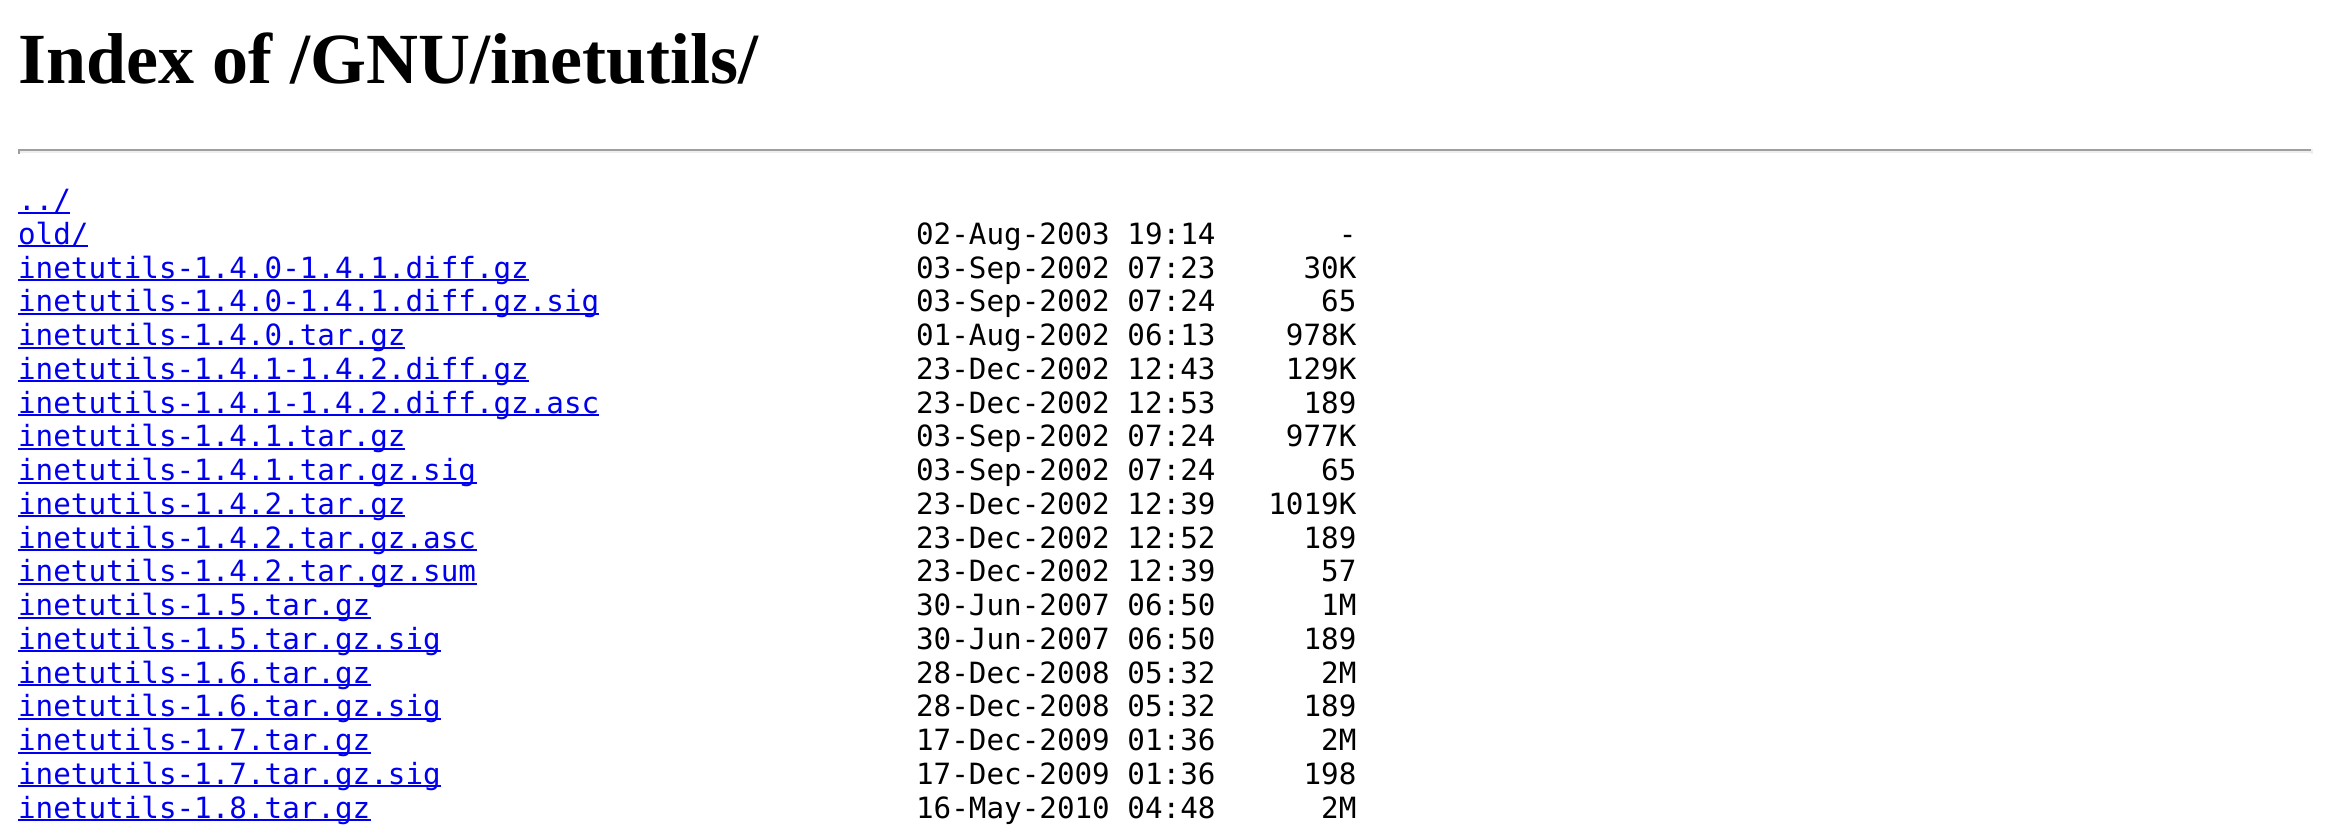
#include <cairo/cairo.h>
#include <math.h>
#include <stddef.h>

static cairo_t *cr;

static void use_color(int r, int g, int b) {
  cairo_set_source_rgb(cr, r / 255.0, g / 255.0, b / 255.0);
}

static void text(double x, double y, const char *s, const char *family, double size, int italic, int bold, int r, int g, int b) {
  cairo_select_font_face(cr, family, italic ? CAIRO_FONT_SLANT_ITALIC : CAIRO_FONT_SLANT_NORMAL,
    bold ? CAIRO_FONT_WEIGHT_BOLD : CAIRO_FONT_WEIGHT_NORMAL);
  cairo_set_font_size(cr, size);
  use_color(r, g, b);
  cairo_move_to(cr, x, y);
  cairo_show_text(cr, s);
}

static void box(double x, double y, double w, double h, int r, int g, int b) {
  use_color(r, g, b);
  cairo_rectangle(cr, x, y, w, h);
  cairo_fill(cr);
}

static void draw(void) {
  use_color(255, 255, 255);
  cairo_paint(cr);
  box(18, 149, 2295, 2, 159, 159, 159);
  box(2311, 149, 2, 5, 238, 238, 238);
  box(18, 151, 2295, 2, 238, 238, 238);
  box(18, 149, 2, 5, 159, 159, 159);
  box(18, 212, 52, 2, 0, 0, 238);
  box(18, 245, 70, 2, 0, 0, 238);
  box(18, 279, 511, 2, 0, 0, 238);
  box(18, 313, 581, 2, 0, 0, 238);
  box(18, 347, 387, 2, 0, 0, 238);
  box(18, 380, 511, 2, 0, 0, 238);
  box(18, 414, 581, 2, 0, 0, 238);
  box(18, 448, 387, 2, 0, 0, 238);
  box(18, 482, 459, 2, 0, 0, 238);
  box(18, 515, 387, 2, 0, 0, 238);
  box(18, 549, 459, 2, 0, 0, 238);
  box(18, 583, 459, 2, 0, 0, 238);
  box(18, 617, 353, 2, 0, 0, 238);
  box(18, 650, 423, 2, 0, 0, 238);
  box(18, 684, 353, 2, 0, 0, 238);
  box(18, 718, 423, 2, 0, 0, 238);
  box(18, 752, 353, 2, 0, 0, 238);
  box(18, 785, 423, 2, 0, 0, 238);
  box(18, 819, 353, 2, 0, 0, 238);
  text(18, 83, "Index of /GNU/inetutils/", "Liberation Serif", 72, 0, 1, 0, 0, 0);
  text(18, 210, "../", "DejaVu Sans Mono", 29.25, 0, 0, 0, 0, 238);
  text(18, 244, "old/", "DejaVu Sans Mono", 29.25, 0, 0, 0, 0, 238);
  text(916, 244, "02-Aug-2003 19:14       -", "DejaVu Sans Mono", 29.25, 0, 0, 0, 0, 0);
  text(18, 278, "inetutils-1.4.0-1.4.1.diff.gz", "DejaVu Sans Mono", 29.25, 0, 0, 0, 0, 238);
  text(916, 278, "03-Sep-2002 07:23     30K", "DejaVu Sans Mono", 29.25, 0, 0, 0, 0, 0);
  text(18, 311, "inetutils-1.4.0-1.4.1.diff.gz.sig", "DejaVu Sans Mono", 29.25, 0, 0, 0, 0, 238);
  text(916, 311, "03-Sep-2002 07:24      65", "DejaVu Sans Mono", 29.25, 0, 0, 0, 0, 0);
  text(18, 345, "inetutils-1.4.0.tar.gz", "DejaVu Sans Mono", 29.25, 0, 0, 0, 0, 238);
  text(916, 345, "01-Aug-2002 06:13    978K", "DejaVu Sans Mono", 29.25, 0, 0, 0, 0, 0);
  text(18, 379, "inetutils-1.4.1-1.4.2.diff.gz", "DejaVu Sans Mono", 29.25, 0, 0, 0, 0, 238);
  text(916, 379, "23-Dec-2002 12:43    129K", "DejaVu Sans Mono", 29.25, 0, 0, 0, 0, 0);
  text(18, 413, "inetutils-1.4.1-1.4.2.diff.gz.asc", "DejaVu Sans Mono", 29.25, 0, 0, 0, 0, 238);
  text(916, 413, "23-Dec-2002 12:53     189", "DejaVu Sans Mono", 29.25, 0, 0, 0, 0, 0);
  text(18, 446, "inetutils-1.4.1.tar.gz", "DejaVu Sans Mono", 29.25, 0, 0, 0, 0, 238);
  text(916, 446, "03-Sep-2002 07:24    977K", "DejaVu Sans Mono", 29.25, 0, 0, 0, 0, 0);
  text(18, 480, "inetutils-1.4.1.tar.gz.sig", "DejaVu Sans Mono", 29.25, 0, 0, 0, 0, 238);
  text(916, 480, "03-Sep-2002 07:24      65", "DejaVu Sans Mono", 29.25, 0, 0, 0, 0, 0);
  text(18, 514, "inetutils-1.4.2.tar.gz", "DejaVu Sans Mono", 29.25, 0, 0, 0, 0, 238);
  text(916, 514, "23-Dec-2002 12:39   1019K", "DejaVu Sans Mono", 29.25, 0, 0, 0, 0, 0);
  text(18, 548, "inetutils-1.4.2.tar.gz.asc", "DejaVu Sans Mono", 29.25, 0, 0, 0, 0, 238);
  text(916, 548, "23-Dec-2002 12:52     189", "DejaVu Sans Mono", 29.25, 0, 0, 0, 0, 0);
  text(18, 581, "inetutils-1.4.2.tar.gz.sum", "DejaVu Sans Mono", 29.25, 0, 0, 0, 0, 238);
  text(916, 581, "23-Dec-2002 12:39      57", "DejaVu Sans Mono", 29.25, 0, 0, 0, 0, 0);
  text(18, 615, "inetutils-1.5.tar.gz", "DejaVu Sans Mono", 29.25, 0, 0, 0, 0, 238);
  text(916, 615, "30-Jun-2007 06:50      1M", "DejaVu Sans Mono", 29.25, 0, 0, 0, 0, 0);
  text(18, 649, "inetutils-1.5.tar.gz.sig", "DejaVu Sans Mono", 29.25, 0, 0, 0, 0, 238);
  text(916, 649, "30-Jun-2007 06:50     189", "DejaVu Sans Mono", 29.25, 0, 0, 0, 0, 0);
  text(18, 683, "inetutils-1.6.tar.gz", "DejaVu Sans Mono", 29.25, 0, 0, 0, 0, 238);
  text(916, 683, "28-Dec-2008 05:32      2M", "DejaVu Sans Mono", 29.25, 0, 0, 0, 0, 0);
  text(18, 716, "inetutils-1.6.tar.gz.sig", "DejaVu Sans Mono", 29.25, 0, 0, 0, 0, 238);
  text(916, 716, "28-Dec-2008 05:32     189", "DejaVu Sans Mono", 29.25, 0, 0, 0, 0, 0);
  text(18, 750, "inetutils-1.7.tar.gz", "DejaVu Sans Mono", 29.25, 0, 0, 0, 0, 238);
  text(916, 750, "17-Dec-2009 01:36      2M", "DejaVu Sans Mono", 29.25, 0, 0, 0, 0, 0);
  text(18, 784, "inetutils-1.7.tar.gz.sig", "DejaVu Sans Mono", 29.25, 0, 0, 0, 0, 238);
  text(916, 784, "17-Dec-2009 01:36     198", "DejaVu Sans Mono", 29.25, 0, 0, 0, 0, 0);
  text(18, 818, "inetutils-1.8.tar.gz", "DejaVu Sans Mono", 29.25, 0, 0, 0, 0, 238);
  text(916, 818, "16-May-2010 04:48      2M", "DejaVu Sans Mono", 29.25, 0, 0, 0, 0, 0);
}

int main(void) {
  cairo_surface_t *surface = cairo_image_surface_create(CAIRO_FORMAT_RGB24, 2331, 839);
  cr = cairo_create(surface);
  cairo_font_options_t *options = cairo_font_options_create();
  cairo_font_options_set_hint_metrics(options, CAIRO_HINT_METRICS_OFF);
  cairo_font_options_set_hint_style(options, CAIRO_HINT_STYLE_NONE);
  cairo_set_font_options(cr, options);
  cairo_set_miter_limit(cr, 4);
  draw();
  cairo_surface_write_to_png(surface, "out.png");
  cairo_font_options_destroy(options);
  cairo_destroy(cr);
  cairo_surface_destroy(surface);
  return 0;
}
